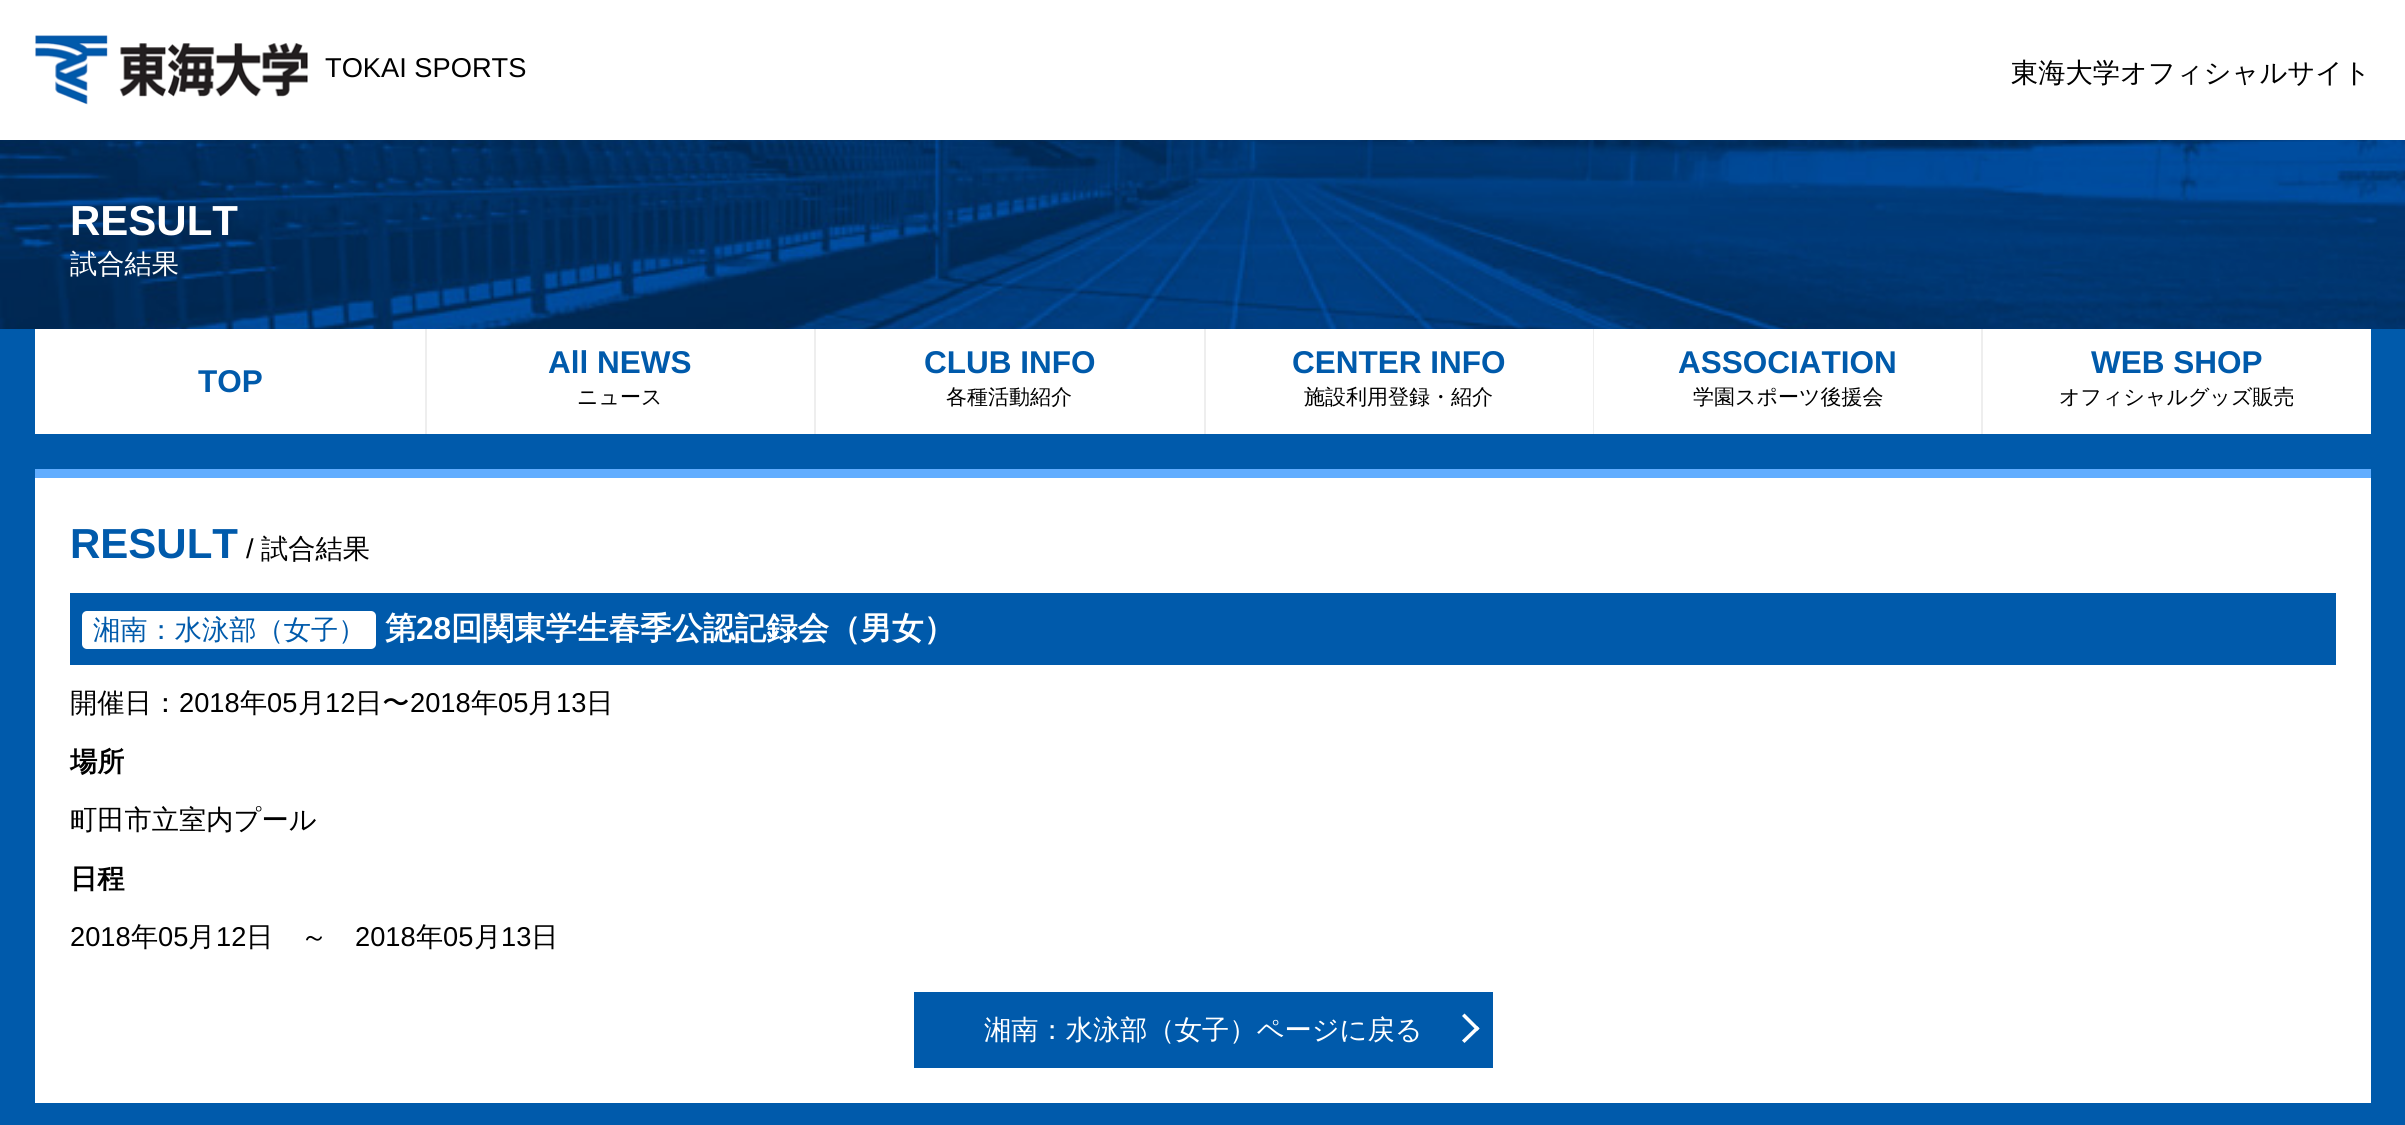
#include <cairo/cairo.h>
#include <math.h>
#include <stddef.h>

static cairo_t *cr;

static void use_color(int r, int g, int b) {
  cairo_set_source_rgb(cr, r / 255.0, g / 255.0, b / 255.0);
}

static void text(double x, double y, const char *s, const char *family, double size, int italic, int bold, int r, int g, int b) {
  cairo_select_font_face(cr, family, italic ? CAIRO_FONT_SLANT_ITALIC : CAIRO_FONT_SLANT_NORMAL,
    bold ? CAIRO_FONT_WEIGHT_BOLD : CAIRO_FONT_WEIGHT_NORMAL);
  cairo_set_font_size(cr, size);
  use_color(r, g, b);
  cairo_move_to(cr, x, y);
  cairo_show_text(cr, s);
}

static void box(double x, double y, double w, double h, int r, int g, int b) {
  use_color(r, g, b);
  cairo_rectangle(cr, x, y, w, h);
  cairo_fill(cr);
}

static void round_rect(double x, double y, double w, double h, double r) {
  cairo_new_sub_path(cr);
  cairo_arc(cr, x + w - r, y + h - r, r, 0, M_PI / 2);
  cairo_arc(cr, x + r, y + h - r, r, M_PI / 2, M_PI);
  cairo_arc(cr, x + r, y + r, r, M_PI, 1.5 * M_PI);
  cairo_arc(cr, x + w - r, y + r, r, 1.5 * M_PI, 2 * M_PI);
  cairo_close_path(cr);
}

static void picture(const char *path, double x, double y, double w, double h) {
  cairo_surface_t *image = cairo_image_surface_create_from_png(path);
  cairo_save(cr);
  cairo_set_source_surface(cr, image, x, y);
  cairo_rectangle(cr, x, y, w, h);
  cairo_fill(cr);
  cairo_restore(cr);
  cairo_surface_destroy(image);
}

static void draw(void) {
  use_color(255, 255, 255);
  cairo_paint(cr);
  picture("img_01.png", 35, 35, 273, 70);
  picture("img_02.png", 0, 140, 2405, 189);
  box(0, 329, 2405, 796, 0, 90, 171);
  box(35, 329, 390, 105, 255, 255, 255);
  box(425, 329, 2, 105, 238, 238, 238);
  box(427, 329, 387, 105, 255, 255, 255);
  box(814, 329, 2, 105, 238, 238, 238);
  box(816, 329, 388, 105, 255, 255, 255);
  box(1204, 329, 2, 105, 238, 238, 238);
  box(1206, 329, 387, 105, 255, 255, 255);
  box(1593, 329, 1, 105, 238, 238, 238);
  box(1594, 329, 387, 105, 255, 255, 255);
  box(1981, 329, 2, 105, 238, 238, 238);
  box(1983, 329, 388, 105, 255, 255, 255);
  box(35, 478, 2336, 625, 255, 255, 255);
  box(35, 469, 2336, 9, 97, 173, 255);
  box(70, 593, 2266, 72, 0, 90, 171);
  use_color(255, 255, 255);
  round_rect(82, 611, 294, 38, 5);
  cairo_fill(cr);
  box(914, 992, 579, 76, 0, 90, 171);
  use_color(255, 255, 255);
  cairo_new_path(cr);
  cairo_move_to(cr, 1464.5, 1013.5);
  cairo_line_to(cr, 1479.5, 1028.5);
  cairo_line_to(cr, 1477, 1031);
  cairo_line_to(cr, 1462, 1016);
  cairo_close_path(cr);
  cairo_fill(cr);
  cairo_new_path(cr);
  cairo_move_to(cr, 1477, 1026);
  cairo_line_to(cr, 1479.5, 1028.5);
  cairo_line_to(cr, 1464.5, 1043);
  cairo_line_to(cr, 1462, 1040.5);
  cairo_close_path(cr);
  cairo_fill(cr);
  text(325, 77, "TOKAI SPORTS", "Liberation Sans", 27.25, 0, 0, 0, 0, 0);
  text(2011, 82, "東海大学オフィシャルサイト", "WenQuanYi Zen Hei Medium", 27.25, 0, 0, 0, 0, 0);
  text(70, 235, "RESULT", "Liberation Sans", 42, 0, 1, 255, 255, 255);
  text(70, 273, "試合結果", "WenQuanYi Zen Hei Medium", 27.25, 0, 0, 255, 255, 255);
  text(198, 392, "TOP", "Liberation Sans", 31.5, 0, 1, 0, 90, 171);
  text(548, 373, "All NEWS", "Liberation Sans", 31.5, 0, 1, 0, 90, 171);
  text(577, 404, "ニュース", "WenQuanYi Zen Hei Medium", 21, 0, 0, 0, 0, 0);
  text(924, 373, "CLUB INFO", "Liberation Sans", 31.5, 0, 1, 0, 90, 171);
  text(946, 404, "各種活動紹介", "WenQuanYi Zen Hei Medium", 21, 0, 0, 0, 0, 0);
  text(1292, 373, "CENTER INFO", "Liberation Sans", 31.5, 0, 1, 0, 90, 171);
  text(1304, 404, "施設利用登録・紹介", "WenQuanYi Zen Hei Medium", 21, 0, 0, 0, 0, 0);
  text(1678, 373, "ASSOCIATION", "Liberation Sans", 31.5, 0, 1, 0, 90, 171);
  text(1693, 404, "学園スポーツ後援会", "WenQuanYi Zen Hei Medium", 21, 0, 0, 0, 0, 0);
  text(2091, 373, "WEB SHOP", "Liberation Sans", 31.5, 0, 1, 0, 90, 171);
  text(2059, 404, "オフィシャルグッズ販売", "WenQuanYi Zen Hei Medium", 21, 0, 0, 0, 0, 0);
  text(70, 558, "RESULT", "Liberation Sans", 42, 0, 1, 0, 90, 171);
  text(246, 558, "/", "Liberation Sans", 27.25, 0, 0, 0, 0, 0);
  text(261, 558, "試合結果", "WenQuanYi Zen Hei Medium", 27.25, 0, 0, 0, 0, 0);
  text(93, 639, "湘南：水泳部（女子）", "WenQuanYi Zen Hei Medium", 27.25, 0, 0, 0, 90, 171);
  text(385, 639, "第", "WenQuanYi Zen Hei", 31.5, 0, 1, 255, 255, 255);
  text(416, 639, "28", "Liberation Sans", 31.5, 0, 1, 255, 255, 255);
  text(451, 639, "回関東学生春季公認記録会（男女）", "WenQuanYi Zen Hei", 31.5, 0, 1, 255, 255, 255);
  text(70, 712, "開催日：", "WenQuanYi Zen Hei Medium", 27.25, 0, 0, 0, 0, 0);
  text(179, 712, "2018", "Liberation Sans", 27.25, 0, 0, 0, 0, 0);
  text(240, 712, "年", "WenQuanYi Zen Hei Medium", 27.25, 0, 0, 0, 0, 0);
  text(267, 712, "05", "Liberation Sans", 27.25, 0, 0, 0, 0, 0);
  text(298, 712, "月", "WenQuanYi Zen Hei Medium", 27.25, 0, 0, 0, 0, 0);
  text(325, 712, "12", "Liberation Sans", 27.25, 0, 0, 0, 0, 0);
  text(355, 712, "日〜", "WenQuanYi Zen Hei Medium", 27.25, 0, 0, 0, 0, 0);
  text(410, 712, "2018", "Liberation Sans", 27.25, 0, 0, 0, 0, 0);
  text(471, 712, "年", "WenQuanYi Zen Hei Medium", 27.25, 0, 0, 0, 0, 0);
  text(498, 712, "05", "Liberation Sans", 27.25, 0, 0, 0, 0, 0);
  text(528, 712, "月", "WenQuanYi Zen Hei Medium", 27.25, 0, 0, 0, 0, 0);
  text(556, 712, "13", "Liberation Sans", 27.25, 0, 0, 0, 0, 0);
  text(586, 712, "日", "WenQuanYi Zen Hei Medium", 27.25, 0, 0, 0, 0, 0);
  text(70, 771, "場所", "WenQuanYi Zen Hei", 27.25, 0, 1, 0, 0, 0);
  text(70, 829, "町田市立室内プール", "WenQuanYi Zen Hei Medium", 27.25, 0, 0, 0, 0, 0);
  text(70, 888, "日程", "WenQuanYi Zen Hei", 27.25, 0, 1, 0, 0, 0);
  text(70, 946, "2018", "Liberation Sans", 27.25, 0, 0, 0, 0, 0);
  text(131, 946, "年", "WenQuanYi Zen Hei Medium", 27.25, 0, 0, 0, 0, 0);
  text(158, 946, "05", "Liberation Sans", 27.25, 0, 0, 0, 0, 0);
  text(188, 946, "月", "WenQuanYi Zen Hei Medium", 27.25, 0, 0, 0, 0, 0);
  text(216, 946, "12", "Liberation Sans", 27.25, 0, 0, 0, 0, 0);
  text(246, 946, "日　～", "WenQuanYi Zen Hei Medium", 27.25, 0, 0, 0, 0, 0);
  text(355, 946, "2018", "Liberation Sans", 27.25, 0, 0, 0, 0, 0);
  text(416, 946, "年", "WenQuanYi Zen Hei Medium", 27.25, 0, 0, 0, 0, 0);
  text(443, 946, "05", "Liberation Sans", 27.25, 0, 0, 0, 0, 0);
  text(474, 946, "月", "WenQuanYi Zen Hei Medium", 27.25, 0, 0, 0, 0, 0);
  text(501, 946, "13", "Liberation Sans", 27.25, 0, 0, 0, 0, 0);
  text(531, 946, "日", "WenQuanYi Zen Hei Medium", 27.25, 0, 0, 0, 0, 0);
  text(984, 1039, "湘南：水泳部（女子）ページに戻る", "WenQuanYi Zen Hei Medium", 27.25, 0, 0, 255, 255, 255);
}

int main(void) {
  cairo_surface_t *surface = cairo_image_surface_create(CAIRO_FORMAT_RGB24, 2405, 1125);
  cr = cairo_create(surface);
  cairo_font_options_t *options = cairo_font_options_create();
  cairo_font_options_set_hint_metrics(options, CAIRO_HINT_METRICS_OFF);
  cairo_font_options_set_hint_style(options, CAIRO_HINT_STYLE_NONE);
  cairo_set_font_options(cr, options);
  cairo_set_miter_limit(cr, 4);
  draw();
  cairo_surface_write_to_png(surface, "out.png");
  cairo_font_options_destroy(options);
  cairo_destroy(cr);
  cairo_surface_destroy(surface);
  return 0;
}
